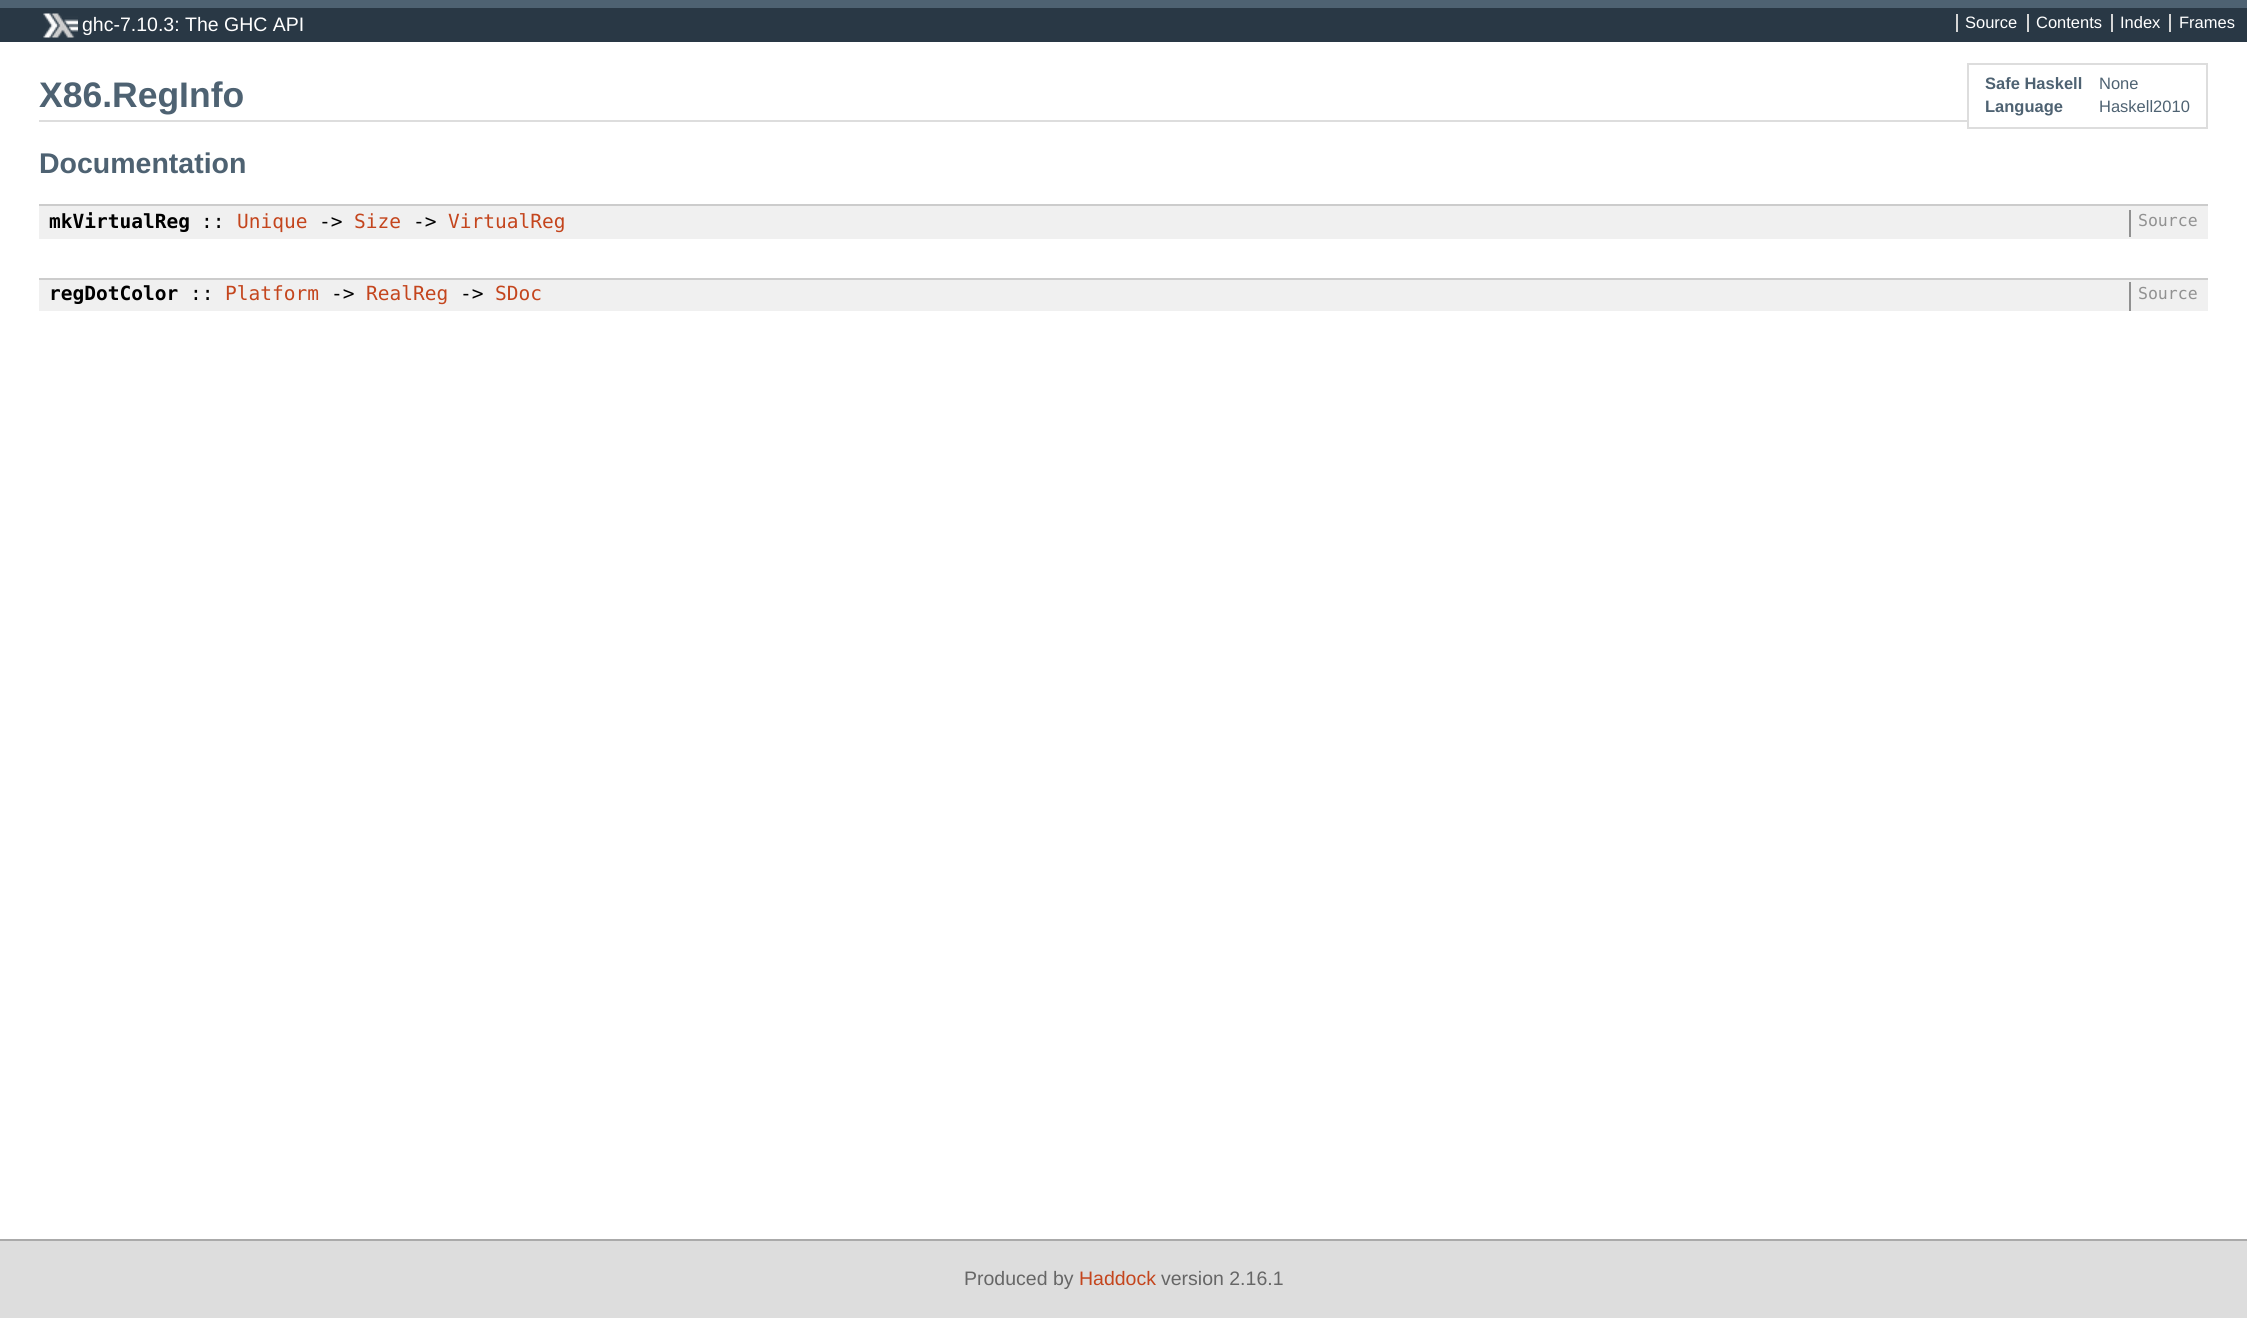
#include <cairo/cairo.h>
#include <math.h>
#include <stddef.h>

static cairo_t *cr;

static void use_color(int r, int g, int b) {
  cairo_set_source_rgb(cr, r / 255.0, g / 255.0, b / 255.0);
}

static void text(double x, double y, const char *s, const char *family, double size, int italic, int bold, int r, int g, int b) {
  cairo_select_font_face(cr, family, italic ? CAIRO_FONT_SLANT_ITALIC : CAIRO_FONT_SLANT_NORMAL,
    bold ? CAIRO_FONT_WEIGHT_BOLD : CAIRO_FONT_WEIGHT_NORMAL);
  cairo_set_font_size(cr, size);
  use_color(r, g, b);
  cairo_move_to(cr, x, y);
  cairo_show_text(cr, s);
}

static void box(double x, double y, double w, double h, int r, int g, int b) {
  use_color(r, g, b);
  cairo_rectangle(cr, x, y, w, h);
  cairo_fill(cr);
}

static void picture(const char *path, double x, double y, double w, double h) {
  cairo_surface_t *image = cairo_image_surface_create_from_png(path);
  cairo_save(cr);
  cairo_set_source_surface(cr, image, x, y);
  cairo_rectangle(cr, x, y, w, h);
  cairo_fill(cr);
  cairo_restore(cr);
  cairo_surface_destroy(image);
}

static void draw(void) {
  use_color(255, 255, 255);
  cairo_paint(cr);
  box(0, 8, 2247, 34, 41, 56, 69);
  box(0, 0, 2247, 8, 78, 98, 114);
  picture("img_01.png", 43, 13, 35, 25);
  box(1956, 14, 2, 18, 213, 213, 213);
  box(2027, 14, 2, 18, 213, 213, 213);
  box(2111, 14, 2, 18, 213, 213, 213);
  box(2169, 14, 2, 18, 213, 213, 213);
  box(39, 120, 1928, 2, 221, 221, 221);
  cairo_rectangle(cr, 1968, 64, 239, 64);
  cairo_stroke(cr);
  box(39, 206, 2169, 33, 240, 240, 240);
  box(39, 204, 2169, 2, 204, 204, 204);
  box(2129, 210, 2, 27, 145, 145, 145);
  box(39, 280, 2169, 31, 240, 240, 240);
  box(39, 278, 2169, 2, 204, 204, 204);
  box(2129, 282, 2, 29, 145, 145, 145);
  box(0, 1241, 2247, 77, 221, 221, 221);
  box(0, 1239, 2247, 2, 170, 170, 170);
  text(82, 31, "ghc-7.10.3: The GHC API", "Liberation Sans", 19.5, 0, 0, 255, 255, 255);
  text(1965, 28, "Source", "Liberation Sans", 16.5, 0, 0, 255, 255, 255);
  text(2036, 28, "Contents", "Liberation Sans", 16.5, 0, 0, 255, 255, 255);
  text(2120, 28, "Index", "Liberation Sans", 16.5, 0, 0, 255, 255, 255);
  text(2179, 28, "Frames", "Liberation Sans", 16.5, 0, 0, 255, 255, 255);
  text(39, 107, "X86.RegInfo", "Liberation Sans", 35.5, 0, 1, 78, 98, 114);
  text(1985, 89, "Safe Haskell", "Liberation Sans", 16.5, 0, 1, 78, 98, 114);
  text(2099, 89, "None", "Liberation Sans", 16.5, 0, 0, 78, 98, 114);
  text(1985, 112, "Language", "Liberation Sans", 16.5, 0, 1, 78, 98, 114);
  text(2099, 112, "Haskell2010", "Liberation Sans", 16.5, 0, 0, 78, 98, 114);
  text(39, 173, "Documentation", "Liberation Sans", 28.5, 0, 1, 78, 98, 114);
  text(49, 228, "mkVirtualReg", "DejaVu Sans Mono", 19.5, 0, 1, 0, 0, 0);
  text(201, 228, "::", "DejaVu Sans Mono", 19.5, 0, 0, 0, 0, 0);
  text(237, 228, "Unique", "DejaVu Sans Mono", 19.5, 0, 0, 196, 69, 29);
  text(319, 228, "->", "DejaVu Sans Mono", 19.5, 0, 0, 0, 0, 0);
  text(354, 228, "Size", "DejaVu Sans Mono", 19.5, 0, 0, 196, 69, 29);
  text(413, 228, "->", "DejaVu Sans Mono", 19.5, 0, 0, 0, 0, 0);
  text(448, 228, "VirtualReg", "DejaVu Sans Mono", 19.5, 0, 0, 196, 69, 29);
  text(2138, 226, "Source", "DejaVu Sans Mono", 16.5, 0, 0, 145, 145, 145);
  text(49, 300, "regDotColor", "DejaVu Sans Mono", 19.5, 0, 1, 0, 0, 0);
  text(190, 300, "::", "DejaVu Sans Mono", 19.5, 0, 0, 0, 0, 0);
  text(225, 300, "Platform", "DejaVu Sans Mono", 19.5, 0, 0, 196, 69, 29);
  text(331, 300, "->", "DejaVu Sans Mono", 19.5, 0, 0, 0, 0, 0);
  text(366, 300, "RealReg", "DejaVu Sans Mono", 19.5, 0, 0, 196, 69, 29);
  text(460, 300, "->", "DejaVu Sans Mono", 19.5, 0, 0, 0, 0, 0);
  text(495, 300, "SDoc", "DejaVu Sans Mono", 19.5, 0, 0, 196, 69, 29);
  text(2138, 299, "Source", "DejaVu Sans Mono", 16.5, 0, 0, 145, 145, 145);
  text(964, 1285, "Produced by", "Liberation Sans", 19.5, 0, 0, 102, 102, 102);
  text(1079, 1285, "Haddock", "Liberation Sans", 19.5, 0, 0, 196, 69, 29);
  text(1161, 1285, "version 2.16.1", "Liberation Sans", 19.5, 0, 0, 102, 102, 102);
}

int main(void) {
  cairo_surface_t *surface = cairo_image_surface_create(CAIRO_FORMAT_RGB24, 2247, 1318);
  cr = cairo_create(surface);
  cairo_font_options_t *options = cairo_font_options_create();
  cairo_font_options_set_hint_metrics(options, CAIRO_HINT_METRICS_OFF);
  cairo_font_options_set_hint_style(options, CAIRO_HINT_STYLE_NONE);
  cairo_set_font_options(cr, options);
  cairo_set_miter_limit(cr, 4);
  draw();
  cairo_surface_write_to_png(surface, "out.png");
  cairo_font_options_destroy(options);
  cairo_destroy(cr);
  cairo_surface_destroy(surface);
  return 0;
}
